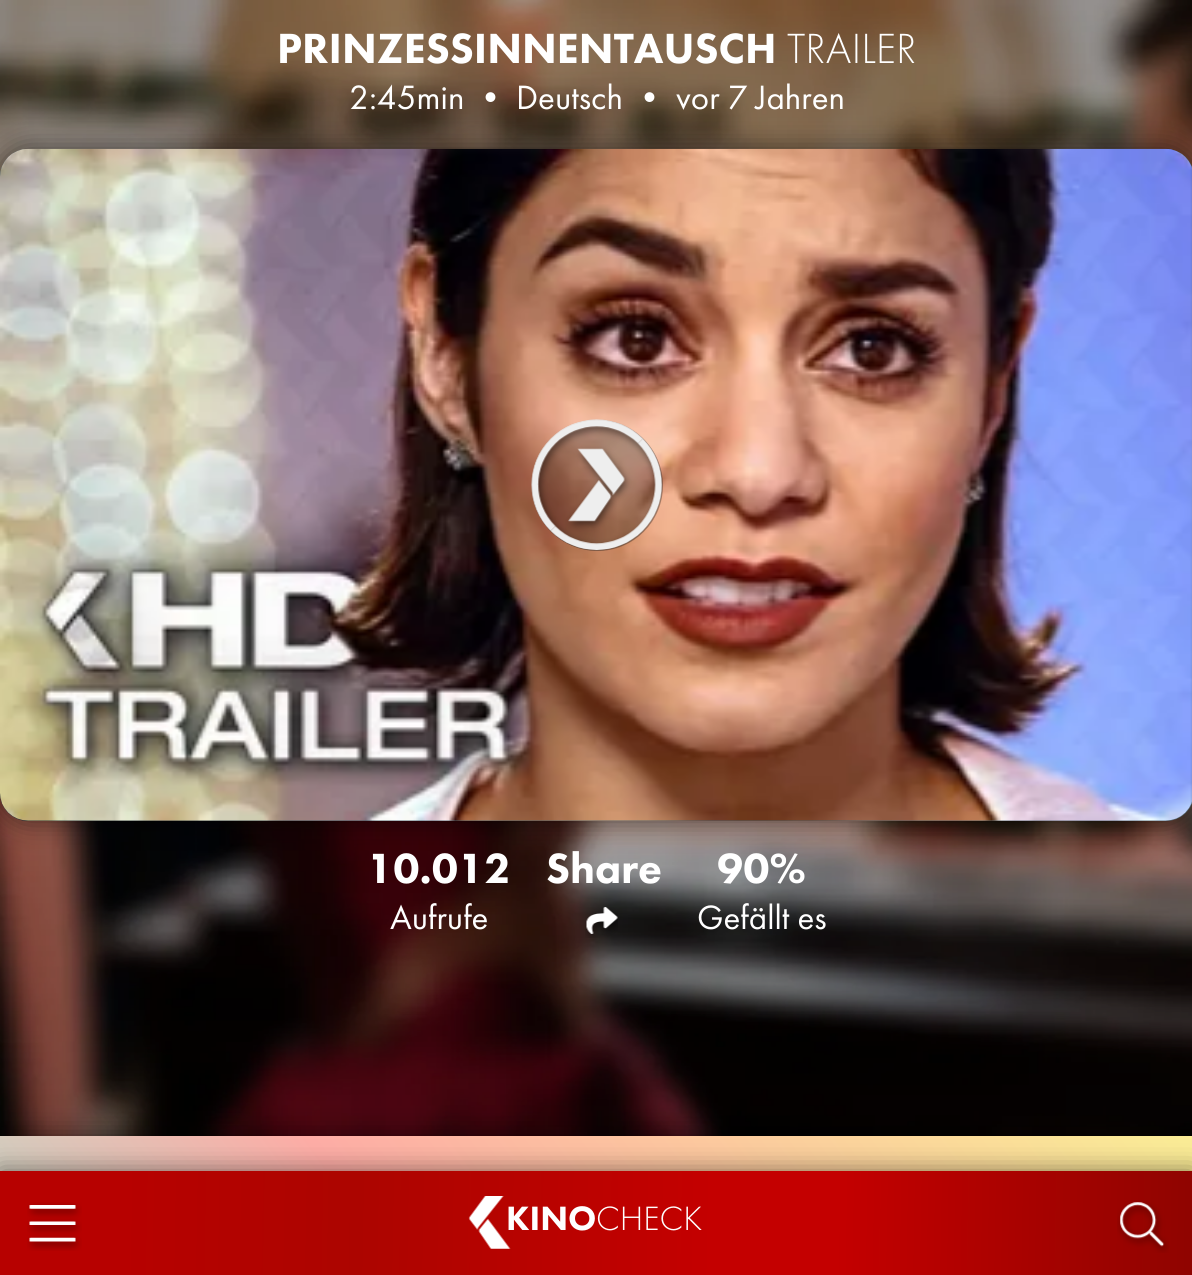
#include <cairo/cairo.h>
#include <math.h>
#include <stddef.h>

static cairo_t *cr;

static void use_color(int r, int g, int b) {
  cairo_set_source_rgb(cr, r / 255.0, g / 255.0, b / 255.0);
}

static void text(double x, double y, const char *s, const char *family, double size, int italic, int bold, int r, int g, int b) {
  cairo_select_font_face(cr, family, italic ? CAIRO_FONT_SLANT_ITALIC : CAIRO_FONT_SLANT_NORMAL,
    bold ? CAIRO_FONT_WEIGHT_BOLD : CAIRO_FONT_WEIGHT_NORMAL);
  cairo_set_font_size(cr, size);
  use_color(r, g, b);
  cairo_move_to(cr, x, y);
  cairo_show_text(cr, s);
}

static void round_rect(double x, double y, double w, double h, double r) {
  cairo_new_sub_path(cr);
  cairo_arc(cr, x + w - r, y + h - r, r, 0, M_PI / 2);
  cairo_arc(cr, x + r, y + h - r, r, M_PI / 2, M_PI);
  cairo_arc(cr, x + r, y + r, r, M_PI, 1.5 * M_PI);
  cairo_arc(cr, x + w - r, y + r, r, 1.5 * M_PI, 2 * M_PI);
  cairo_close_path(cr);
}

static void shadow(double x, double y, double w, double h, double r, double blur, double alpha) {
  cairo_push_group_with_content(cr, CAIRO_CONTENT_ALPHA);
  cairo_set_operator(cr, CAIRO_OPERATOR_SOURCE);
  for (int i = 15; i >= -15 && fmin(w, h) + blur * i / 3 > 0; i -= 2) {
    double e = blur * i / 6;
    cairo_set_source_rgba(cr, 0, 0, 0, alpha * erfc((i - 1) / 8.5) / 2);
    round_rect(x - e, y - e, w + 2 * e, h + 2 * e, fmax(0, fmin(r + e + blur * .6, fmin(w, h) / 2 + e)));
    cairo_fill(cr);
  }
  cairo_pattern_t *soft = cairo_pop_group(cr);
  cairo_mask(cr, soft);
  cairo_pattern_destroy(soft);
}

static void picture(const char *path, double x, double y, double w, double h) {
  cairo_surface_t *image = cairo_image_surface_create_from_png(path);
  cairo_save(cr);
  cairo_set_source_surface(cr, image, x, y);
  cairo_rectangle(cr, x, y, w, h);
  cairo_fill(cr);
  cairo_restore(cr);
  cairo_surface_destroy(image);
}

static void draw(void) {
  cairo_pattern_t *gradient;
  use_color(255, 255, 255);
  cairo_paint(cr);
  picture("img_01.png", 0, 0, 1192, 1136);
  use_color(0, 0, 0);
  shadow(0, 149, 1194, 672, 28, 13, 0.5);
  gradient = cairo_pattern_create_linear(185, 976, 1009, -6.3);
  cairo_pattern_add_color_stop_rgba(gradient, 0.07, 0.149, 0.196, 0.22, 1);
  cairo_pattern_add_color_stop_rgba(gradient, 0.25, 0.286, 0.396, 0.443, 1);
  cairo_pattern_add_color_stop_rgba(gradient, 0.54, 0.306, 0.376, 0.412, 1);
  cairo_pattern_add_color_stop_rgba(gradient, 0.82, 0.471, 0.565, 0.612, 1);
  cairo_pattern_add_color_stop_rgba(gradient, 1, 0.271, 0.353, 0.392, 1);
  cairo_set_source(cr, gradient);
  cairo_pattern_destroy(gradient);
  round_rect(0, 149, 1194, 672, 28);
  cairo_fill(cr);
  picture("img_02.png", 0, 148, 1192, 673);
  cairo_set_source_rgba(cr, 0, 0, 0, 0.3);
  cairo_arc(cr, 597.5, 485.5, 65.5, 0, 2 * M_PI);
  cairo_fill(cr);
  picture("img_03.png", 531, 419, 132, 132);
  picture("img_04.png", 585, 907, 33, 31);
  use_color(0, 0, 0);
  shadow(0, 1136, 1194, 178, 0, 13, 0.5);
  gradient = cairo_pattern_create_linear(96, 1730, 1097, 1003);
  cairo_pattern_add_color_stop_rgba(gradient, 0, 0.671, 0.925, 0.839, 1);
  cairo_pattern_add_color_stop_rgba(gradient, 0.42, 0.996, 0.678, 0.651, 1);
  cairo_pattern_add_color_stop_rgba(gradient, 1, 0.984, 0.929, 0.588, 1);
  cairo_set_source(cr, gradient);
  cairo_pattern_destroy(gradient);
  cairo_rectangle(cr, 0, 1136, 1192, 35);
  cairo_fill(cr);
  use_color(0, 0, 0);
  shadow(0, 1171, 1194, 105, 0, 13, 0.5);
  gradient = cairo_pattern_create_linear(-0.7, 1213, 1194, 1234);
  cairo_pattern_add_color_stop_rgba(gradient, 0.1, 0.718, 0.004, 0, 1);
  cairo_pattern_add_color_stop_rgba(gradient, 0.3, 0.675, 0.02, 0, 1);
  cairo_pattern_add_color_stop_rgba(gradient, 0.6, 0.769, 0, 0, 1);
  cairo_pattern_add_color_stop_rgba(gradient, 0.7, 0.769, 0, 0, 1);
  cairo_pattern_add_color_stop_rgba(gradient, 1, 0.561, 0.016, 0, 1);
  cairo_set_source(cr, gradient);
  cairo_pattern_destroy(gradient);
  cairo_rectangle(cr, 0, 1171, 1192, 104);
  cairo_fill(cr);
  picture("img_05.png", 27, 1202, 55, 49);
  picture("img_07.png", 1117, 1200, 52, 53);
  text(277, 63, "PRINZESSINNENTAUSCH", "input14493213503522", 43.75, 0, 0, 255, 255, 255);
  text(787, 63, "TRAILER", "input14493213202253", 43.75, 0, 0, 255, 255, 255);
  text(349, 109, "2:45min", "Futura PT", 35, 0, 0, 255, 255, 255);
  text(473, 109, "•", "Futura PT", 35, 0, 0, 255, 255, 255);
  text(516, 109, "Deutsch", "Futura PT", 35, 0, 0, 255, 255, 255);
  text(632, 109, "•", "Futura PT", 35, 0, 0, 255, 255, 255);
  text(676, 109, "vor 7 Jahren", "Futura PT", 35, 0, 0, 255, 255, 255);
  text(367, 883, "10.012", "input14493213503522", 43.75, 0, 0, 255, 255, 255);
  text(390, 929, "Aufrufe", "Futura PT", 35, 0, 0, 255, 255, 255);
  text(546, 883, "Share", "input14493213503522", 43.75, 0, 0, 255, 255, 255);
  text(717, 883, "90%", "input14493213503522", 43.75, 0, 0, 255, 255, 255);
  text(697, 929, "Gefällt es", "Futura PT", 35, 0, 0, 255, 255, 255);
  text(506, 1230, "KINO", "input14493213503522", 35, 0, 0, 255, 255, 255);
  picture("img_06.png", 468, 1196, 43, 53);
  text(596, 1230, "CHECK", "input14493213202253", 35, 0, 0, 255, 255, 255);
}

int main(void) {
  cairo_surface_t *surface = cairo_image_surface_create(CAIRO_FORMAT_RGB24, 1192, 1275);
  cr = cairo_create(surface);
  cairo_font_options_t *options = cairo_font_options_create();
  cairo_font_options_set_hint_metrics(options, CAIRO_HINT_METRICS_OFF);
  cairo_font_options_set_hint_style(options, CAIRO_HINT_STYLE_NONE);
  cairo_set_font_options(cr, options);
  cairo_set_miter_limit(cr, 4);
  draw();
  cairo_surface_write_to_png(surface, "out.png");
  cairo_font_options_destroy(options);
  cairo_destroy(cr);
  cairo_surface_destroy(surface);
  return 0;
}
